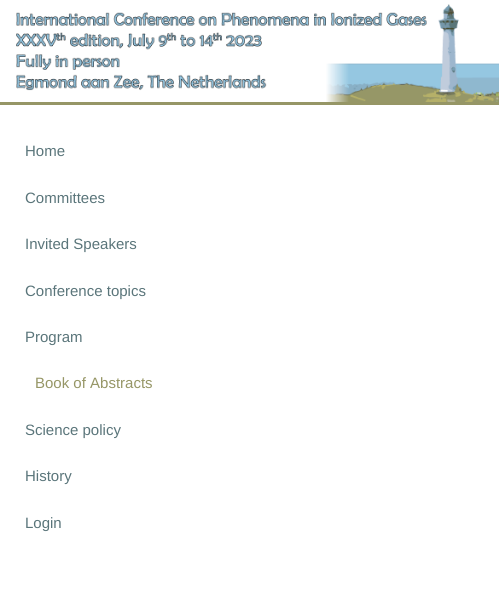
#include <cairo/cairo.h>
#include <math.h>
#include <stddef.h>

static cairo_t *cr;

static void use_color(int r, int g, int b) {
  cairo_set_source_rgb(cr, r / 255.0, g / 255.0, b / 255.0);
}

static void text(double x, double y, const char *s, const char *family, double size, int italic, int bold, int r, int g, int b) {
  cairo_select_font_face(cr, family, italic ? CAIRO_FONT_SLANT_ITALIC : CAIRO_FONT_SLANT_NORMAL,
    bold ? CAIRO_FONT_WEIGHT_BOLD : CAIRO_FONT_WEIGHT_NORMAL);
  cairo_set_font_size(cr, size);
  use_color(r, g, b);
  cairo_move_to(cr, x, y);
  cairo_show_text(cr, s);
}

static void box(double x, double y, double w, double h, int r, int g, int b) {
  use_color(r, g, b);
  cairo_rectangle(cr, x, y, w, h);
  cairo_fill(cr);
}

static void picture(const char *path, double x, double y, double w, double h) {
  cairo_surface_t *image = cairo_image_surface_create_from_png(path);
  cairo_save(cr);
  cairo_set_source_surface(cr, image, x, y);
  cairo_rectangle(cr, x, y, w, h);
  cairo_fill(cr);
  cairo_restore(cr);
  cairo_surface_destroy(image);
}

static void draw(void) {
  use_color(255, 255, 255);
  cairo_paint(cr);
  box(0, 102, 499, 3, 150, 150, 102);
  picture("img_01.png", 16, 4, 483, 98);
  text(25, 156, "Home", "Liberation Sans", 15, 0, 0, 90, 117, 122);
  text(25, 203, "Committees", "Liberation Sans", 15, 0, 0, 90, 117, 122);
  text(25, 249, "Invited Speakers", "Liberation Sans", 15, 0, 0, 90, 117, 122);
  text(25, 296, "Conference topics", "Liberation Sans", 15, 0, 0, 90, 117, 122);
  text(25, 342, "Program", "Liberation Sans", 15, 0, 0, 90, 117, 122);
  text(35, 388, "Book of Abstracts", "Liberation Sans", 15, 0, 0, 150, 150, 102);
  text(25, 435, "Science policy", "Liberation Sans", 15, 0, 0, 90, 117, 122);
  text(25, 481, "History", "Liberation Sans", 15, 0, 0, 90, 117, 122);
  text(25, 528, "Login", "Liberation Sans", 15, 0, 0, 90, 117, 122);
}

int main(void) {
  cairo_surface_t *surface = cairo_image_surface_create(CAIRO_FORMAT_RGB24, 499, 607);
  cr = cairo_create(surface);
  cairo_font_options_t *options = cairo_font_options_create();
  cairo_font_options_set_hint_metrics(options, CAIRO_HINT_METRICS_OFF);
  cairo_font_options_set_hint_style(options, CAIRO_HINT_STYLE_NONE);
  cairo_set_font_options(cr, options);
  cairo_set_miter_limit(cr, 4);
  draw();
  cairo_surface_write_to_png(surface, "out.png");
  cairo_font_options_destroy(options);
  cairo_destroy(cr);
  cairo_surface_destroy(surface);
  return 0;
}
